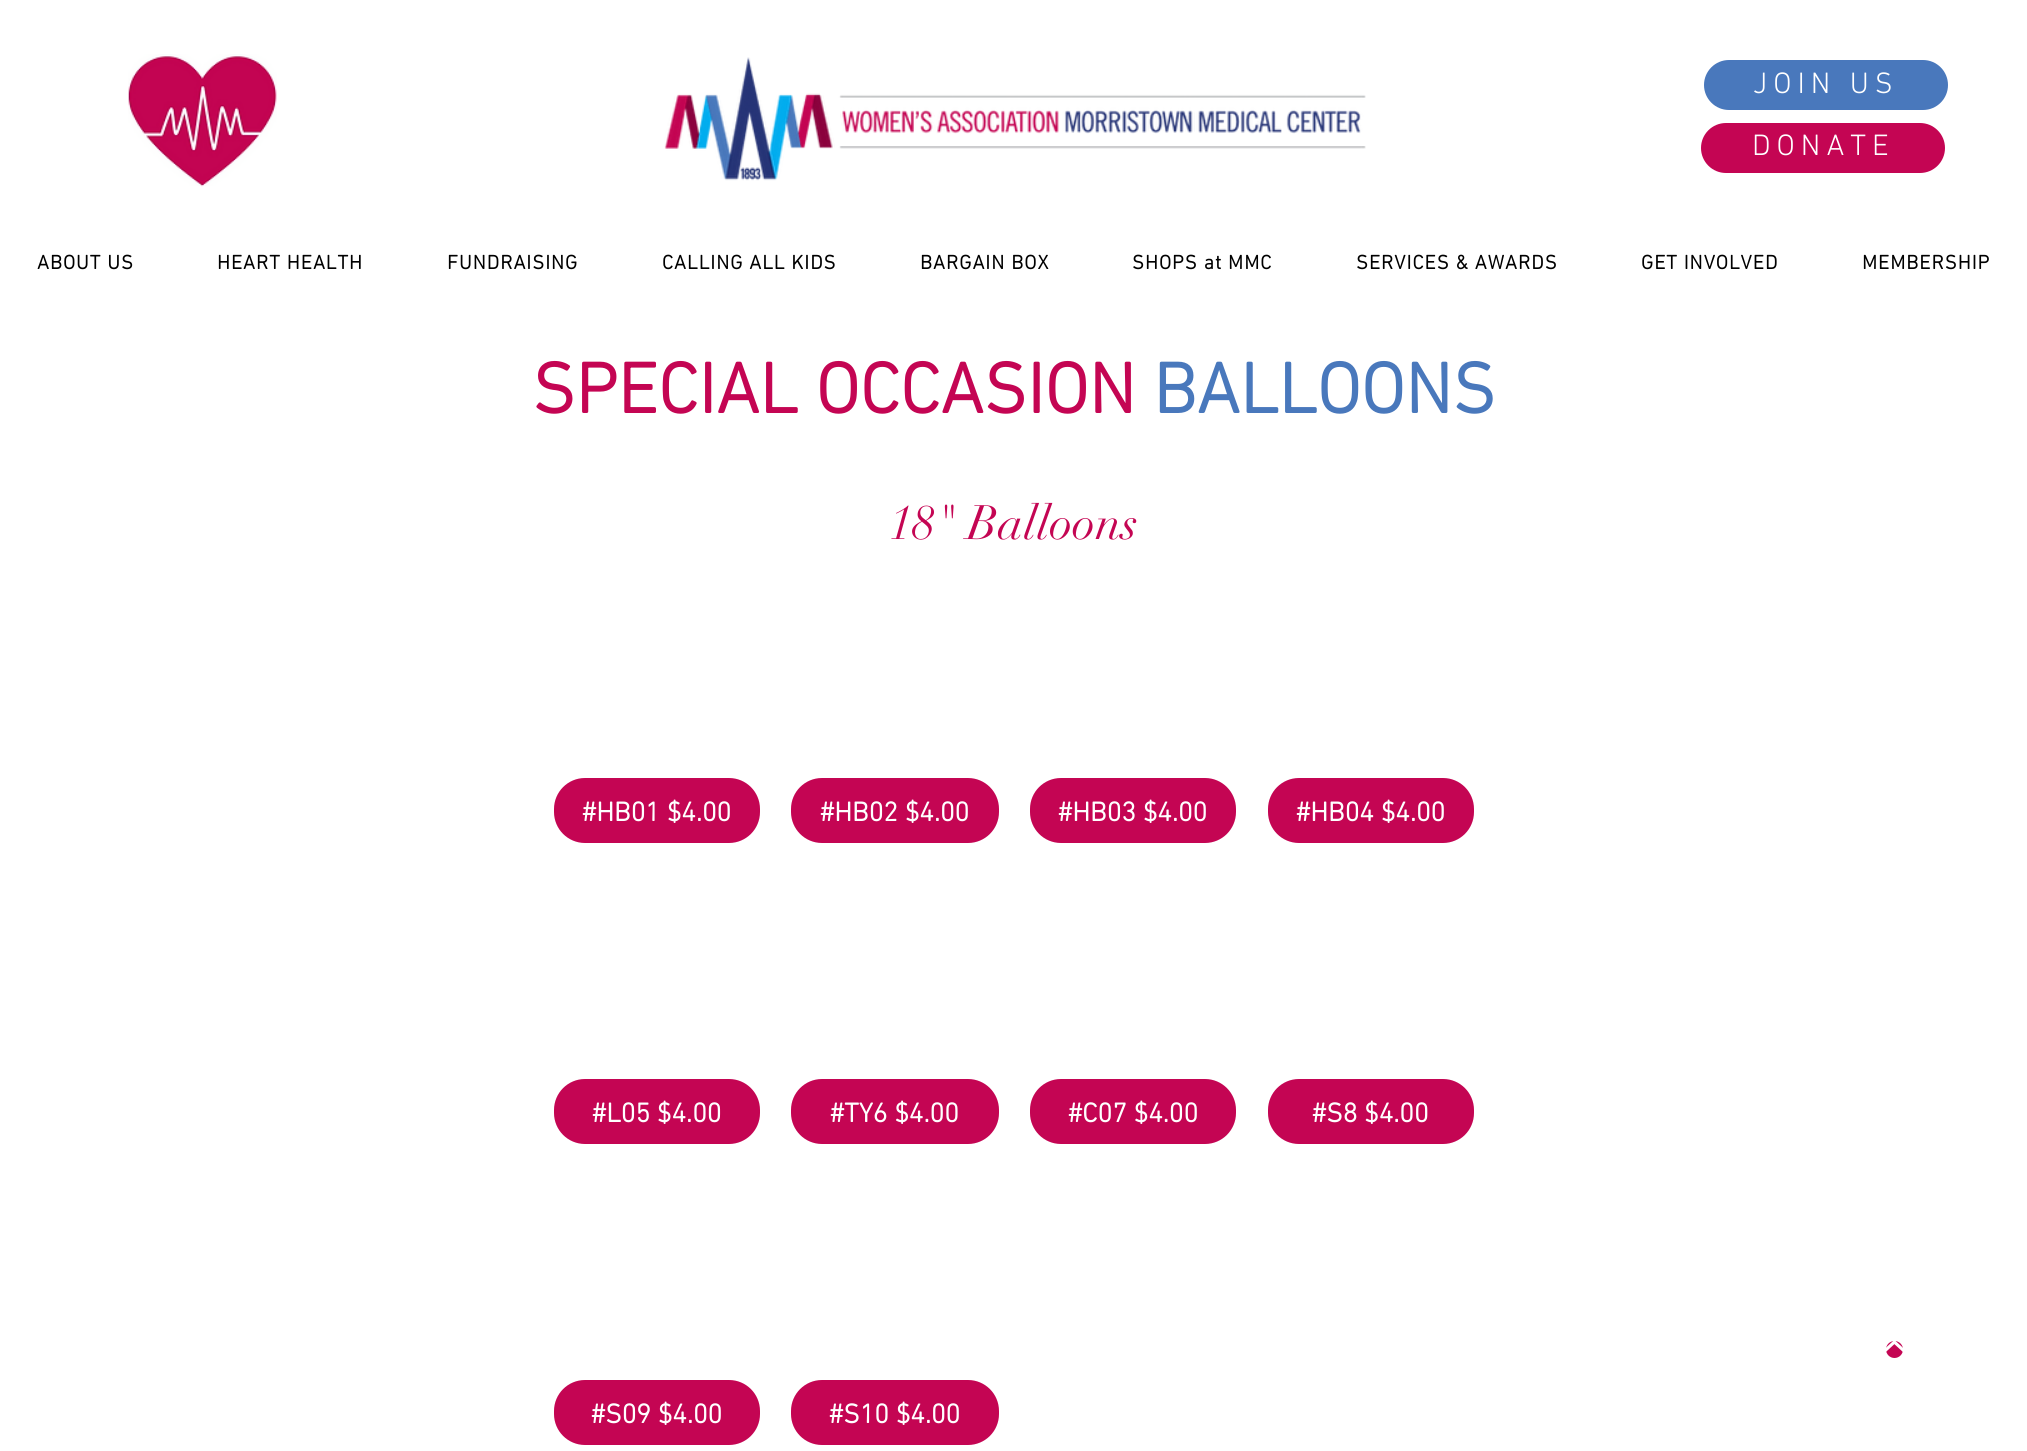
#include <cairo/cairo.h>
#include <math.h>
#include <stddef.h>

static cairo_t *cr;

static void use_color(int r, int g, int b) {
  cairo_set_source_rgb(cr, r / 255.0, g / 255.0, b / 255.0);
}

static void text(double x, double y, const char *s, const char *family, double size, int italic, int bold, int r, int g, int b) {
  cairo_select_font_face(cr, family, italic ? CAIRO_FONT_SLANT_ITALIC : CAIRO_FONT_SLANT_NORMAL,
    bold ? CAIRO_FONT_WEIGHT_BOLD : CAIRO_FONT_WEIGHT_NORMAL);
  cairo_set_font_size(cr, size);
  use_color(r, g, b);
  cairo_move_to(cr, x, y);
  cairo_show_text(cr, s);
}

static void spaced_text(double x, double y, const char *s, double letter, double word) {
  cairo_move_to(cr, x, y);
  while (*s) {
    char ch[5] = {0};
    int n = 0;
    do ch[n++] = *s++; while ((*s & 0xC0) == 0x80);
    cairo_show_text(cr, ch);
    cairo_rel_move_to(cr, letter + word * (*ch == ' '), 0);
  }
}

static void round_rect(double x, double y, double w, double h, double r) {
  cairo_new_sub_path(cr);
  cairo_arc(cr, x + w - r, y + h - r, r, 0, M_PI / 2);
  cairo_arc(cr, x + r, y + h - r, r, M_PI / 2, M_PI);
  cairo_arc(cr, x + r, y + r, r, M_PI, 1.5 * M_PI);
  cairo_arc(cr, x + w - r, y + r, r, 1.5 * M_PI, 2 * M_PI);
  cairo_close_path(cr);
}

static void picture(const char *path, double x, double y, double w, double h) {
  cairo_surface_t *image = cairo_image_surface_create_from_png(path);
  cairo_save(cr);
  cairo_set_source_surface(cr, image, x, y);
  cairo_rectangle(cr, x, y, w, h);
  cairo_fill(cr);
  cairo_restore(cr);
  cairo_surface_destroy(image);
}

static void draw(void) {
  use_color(255, 255, 255);
  cairo_paint(cr);
  picture("img_01.png", 128, 54, 149, 133);
  picture("img_02.png", 664, 57, 702, 124);
  use_color(73, 120, 188);
  round_rect(1704, 60, 244, 50, 25);
  cairo_fill(cr);
  use_color(196, 5, 83);
  round_rect(1701, 123, 244, 50, 25);
  cairo_fill(cr);
  round_rect(554, 778, 206, 65, 31);
  cairo_fill(cr);
  round_rect(791, 778, 208, 65, 31);
  cairo_fill(cr);
  round_rect(1030, 778, 206, 65, 31);
  cairo_fill(cr);
  round_rect(1268, 778, 206, 65, 31);
  cairo_fill(cr);
  round_rect(554, 1079, 206, 65, 31);
  cairo_fill(cr);
  round_rect(791, 1079, 208, 65, 31);
  cairo_fill(cr);
  round_rect(1030, 1079, 206, 65, 31);
  cairo_fill(cr);
  round_rect(1268, 1079, 206, 65, 31);
  cairo_fill(cr);
  round_rect(554, 1380, 206, 65, 31);
  cairo_fill(cr);
  round_rect(791, 1380, 208, 65, 31);
  cairo_fill(cr);
  cairo_arc(cr, 1894.5, 1349.5, 8.5, 0, 2 * M_PI);
  cairo_fill(cr);
  picture("img_03.png", 1886, 1341, 17, 11);
  cairo_select_font_face(cr, "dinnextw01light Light", CAIRO_FONT_SLANT_NORMAL, CAIRO_FONT_WEIGHT_NORMAL);
  cairo_set_font_size(cr, 30);
  use_color(255, 255, 255);
  spaced_text(1753, 93, "JOIN US", 6, 0);
  spaced_text(1752, 155, "DONATE", 6, 0);
  cairo_select_font_face(cr, "dinnextw01light", CAIRO_FONT_SLANT_NORMAL, CAIRO_FONT_WEIGHT_BOLD);
  cairo_set_font_size(cr, 20);
  use_color(0, 0, 0);
  spaced_text(37, 269, "ABOUT US", 1, 0);
  spaced_text(217, 269, "HEART HEALTH", 1, 0);
  spaced_text(447, 269, "FUNDRAISING", 1, 0);
  spaced_text(662, 269, "CALLING ALL KIDS", 1, 0);
  spaced_text(920, 269, "BARGAIN BOX", 1, 0);
  spaced_text(1132, 269, "SHOPS at MMC", 1, 0);
  spaced_text(1356, 269, "SERVICES & AWARDS", 1, 0);
  spaced_text(1641, 269, "GET INVOLVED", 1, 0);
  spaced_text(1862, 269, "MEMBERSHIP", 1, 0);
  text(532, 413, "SPECIAL OCCASION", "dinnextw01light", 72.5, 0, 1, 196, 5, 83);
  text(1153, 413, "BALLOONS", "dinnextw01light", 72.5, 0, 1, 73, 120, 188);
  text(889, 539, "18\" Balloons", "didot", 47.5, 0, 0, 196, 5, 83);
  text(582, 821, "#HB01 $4.00", "dinnextw01light", 27.5, 0, 1, 255, 255, 255);
  text(820, 821, "#HB02 $4.00", "dinnextw01light", 27.5, 0, 1, 255, 255, 255);
  text(1058, 821, "#HB03 $4.00", "dinnextw01light", 27.5, 0, 1, 255, 255, 255);
  text(1296, 821, "#HB04 $4.00", "dinnextw01light", 27.5, 0, 1, 255, 255, 255);
  text(592, 1122, "#L05 $4.00", "dinnextw01light", 27.5, 0, 1, 255, 255, 255);
  text(830, 1122, "#TY6 $4.00", "dinnextw01light", 27.5, 0, 1, 255, 255, 255);
  text(1068, 1122, "#C07 $4.00", "dinnextw01light", 27.5, 0, 1, 255, 255, 255);
  text(1312, 1122, "#S8 $4.00", "dinnextw01light", 27.5, 0, 1, 255, 255, 255);
  text(591, 1423, "#S09 $4.00", "dinnextw01light", 27.5, 0, 1, 255, 255, 255);
  text(829, 1423, "#S10 $4.00", "dinnextw01light", 27.5, 0, 1, 255, 255, 255);
}

int main(void) {
  cairo_surface_t *surface = cairo_image_surface_create(CAIRO_FORMAT_RGB24, 2027, 1451);
  cr = cairo_create(surface);
  cairo_font_options_t *options = cairo_font_options_create();
  cairo_font_options_set_hint_metrics(options, CAIRO_HINT_METRICS_OFF);
  cairo_font_options_set_hint_style(options, CAIRO_HINT_STYLE_NONE);
  cairo_set_font_options(cr, options);
  cairo_set_miter_limit(cr, 4);
  draw();
  cairo_surface_write_to_png(surface, "out.png");
  cairo_font_options_destroy(options);
  cairo_destroy(cr);
  cairo_surface_destroy(surface);
  return 0;
}
